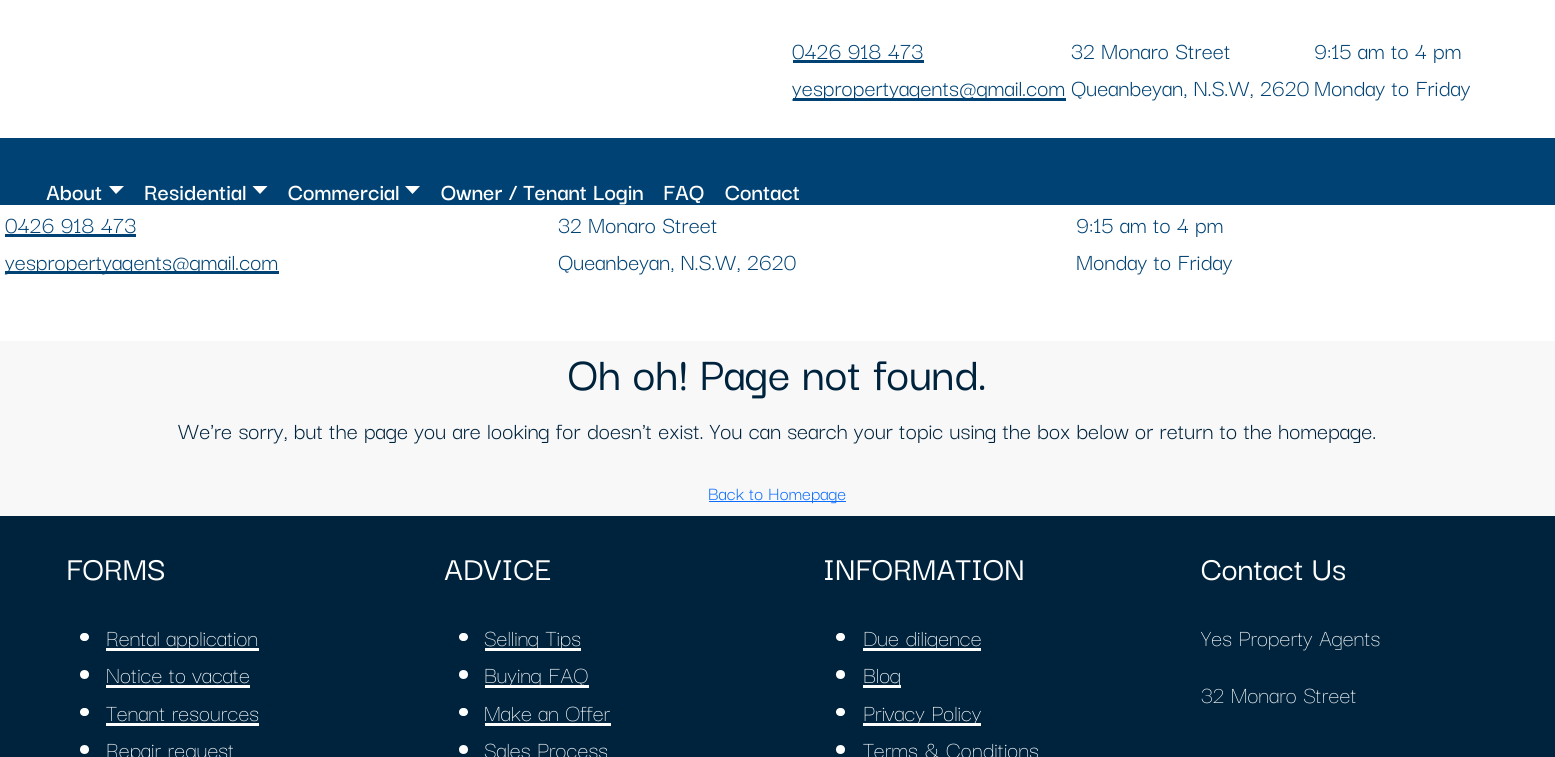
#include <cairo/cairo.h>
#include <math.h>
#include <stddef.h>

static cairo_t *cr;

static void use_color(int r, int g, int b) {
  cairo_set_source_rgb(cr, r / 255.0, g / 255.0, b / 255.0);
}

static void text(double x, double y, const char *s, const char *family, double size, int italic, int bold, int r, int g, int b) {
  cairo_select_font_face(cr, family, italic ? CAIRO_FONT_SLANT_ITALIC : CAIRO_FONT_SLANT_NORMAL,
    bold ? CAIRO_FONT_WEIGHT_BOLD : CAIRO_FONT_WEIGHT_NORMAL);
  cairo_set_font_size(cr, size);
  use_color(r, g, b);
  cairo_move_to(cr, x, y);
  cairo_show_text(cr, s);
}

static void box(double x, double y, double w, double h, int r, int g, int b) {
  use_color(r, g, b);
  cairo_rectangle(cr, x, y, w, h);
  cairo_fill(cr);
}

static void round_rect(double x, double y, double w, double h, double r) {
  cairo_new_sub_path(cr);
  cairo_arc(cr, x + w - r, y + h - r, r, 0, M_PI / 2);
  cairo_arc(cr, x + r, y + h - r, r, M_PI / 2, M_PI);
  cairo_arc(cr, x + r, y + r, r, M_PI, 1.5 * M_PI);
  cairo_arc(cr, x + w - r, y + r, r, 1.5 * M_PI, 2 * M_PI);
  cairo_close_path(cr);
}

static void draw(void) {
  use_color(248, 248, 248);
  cairo_paint(cr);
  box(0, 0, 1555, 138, 255, 255, 255);
  box(793, 60, 131, 3, 0, 66, 116);
  box(793, 98, 273, 3, 0, 66, 116);
  box(0, 138, 1555, 67, 0, 66, 116);
  use_color(255, 255, 255);
  cairo_new_path(cr);
  cairo_move_to(cr, 109, 186);
  cairo_line_to(cr, 124, 186);
  cairo_line_to(cr, 116, 194);
  cairo_close_path(cr);
  cairo_fill(cr);
  cairo_new_path(cr);
  cairo_move_to(cr, 252.5, 186);
  cairo_line_to(cr, 267.5, 186);
  cairo_line_to(cr, 260, 194);
  cairo_close_path(cr);
  cairo_fill(cr);
  cairo_new_path(cr);
  cairo_move_to(cr, 405, 186);
  cairo_line_to(cr, 420, 186);
  cairo_line_to(cr, 412.5, 194);
  cairo_close_path(cr);
  cairo_fill(cr);
  box(0, 205, 1555, 136, 255, 255, 255);
  box(5, 234, 131, 3, 0, 66, 116);
  box(5, 271, 274, 3, 0, 66, 116);
  box(709, 501, 137, 1, 13, 110, 253);
  box(0, 516, 1555, 241, 0, 35, 61);
  use_color(255, 255, 255);
  round_rect(80, 633, 9, 8, 4);
  cairo_fill(cr);
  box(106, 648, 153, 3, 255, 255, 255);
  cairo_arc(cr, 84.5, 674.5, 4.5, 0, 2 * M_PI);
  cairo_fill(cr);
  box(106, 685, 144, 3, 255, 255, 255);
  round_rect(80, 708, 9, 8, 4);
  cairo_fill(cr);
  box(106, 723, 153, 3, 255, 255, 255);
  cairo_arc(cr, 84.5, 749.5, 4.5, 0, 2 * M_PI);
  cairo_fill(cr);
  round_rect(459, 633, 9, 8, 4);
  cairo_fill(cr);
  box(485, 648, 96, 3, 255, 255, 255);
  cairo_arc(cr, 463.5, 674.5, 4.5, 0, 2 * M_PI);
  cairo_fill(cr);
  box(485, 685, 104, 3, 255, 255, 255);
  round_rect(459, 708, 9, 8, 4);
  cairo_fill(cr);
  box(485, 723, 126, 3, 255, 255, 255);
  cairo_arc(cr, 463.5, 749.5, 4.5, 0, 2 * M_PI);
  cairo_fill(cr);
  round_rect(836, 633, 9, 8, 4);
  cairo_fill(cr);
  box(863, 648, 118, 3, 255, 255, 255);
  cairo_arc(cr, 840.5, 674.5, 4.5, 0, 2 * M_PI);
  cairo_fill(cr);
  box(863, 685, 38, 3, 255, 255, 255);
  round_rect(836, 708, 9, 8, 4);
  cairo_fill(cr);
  box(863, 723, 118, 3, 255, 255, 255);
  cairo_arc(cr, 840.5, 749.5, 4.5, 0, 2 * M_PI);
  cairo_fill(cr);
  text(792, 59, "0426 918 473", "Darker Grotesque", 25, 0, 0, 0, 66, 116);
  text(792, 96, "yespropertyagents@gmail.com", "Darker Grotesque", 25, 0, 0, 0, 66, 116);
  text(1071, 59, "32 Monaro Street", "Darker Grotesque", 25, 0, 0, 0, 66, 116);
  text(1071, 96, "Queanbeyan, N.S.W, 2620", "Darker Grotesque", 25, 0, 0, 0, 66, 116);
  text(1314, 59, "9:15 am to 4 pm", "Darker Grotesque", 25, 0, 0, 0, 66, 116);
  text(1314, 96, "Monday to Friday", "Darker Grotesque", 25, 0, 0, 0, 66, 116);
  text(46, 200, "About", "Darker Grotesque SemiBold", 25, 0, 0, 255, 255, 255);
  text(144, 200, "Residential", "Darker Grotesque SemiBold", 25, 0, 0, 255, 255, 255);
  text(288, 200, "Commercial", "Darker Grotesque SemiBold", 25, 0, 0, 255, 255, 255);
  text(441, 200, "Owner / Tenant Login", "Darker Grotesque SemiBold", 25, 0, 0, 255, 255, 255);
  text(663, 200, "FAQ", "Darker Grotesque SemiBold", 25, 0, 0, 255, 255, 255);
  text(725, 200, "Contact", "Darker Grotesque SemiBold", 25, 0, 0, 255, 255, 255);
  text(5, 233, "0426 918 473", "Darker Grotesque", 25, 0, 0, 0, 66, 116);
  text(5, 270, "yespropertyagents@gmail.com", "Darker Grotesque", 25, 0, 0, 0, 66, 116);
  text(558, 233, "32 Monaro Street", "Darker Grotesque", 25, 0, 0, 0, 66, 116);
  text(558, 270, "Queanbeyan, N.S.W, 2620", "Darker Grotesque", 25, 0, 0, 0, 66, 116);
  text(1076, 233, "9:15 am to 4 pm", "Darker Grotesque", 25, 0, 0, 0, 66, 116);
  text(1076, 270, "Monday to Friday", "Darker Grotesque", 25, 0, 0, 0, 66, 116);
  text(568, 390, "Oh oh! Page not found.", "Darker Grotesque Medium", 50, 0, 0, 0, 35, 61);
  text(178, 439, "We're sorry, but the page you are looking for doesn't exist. You can search your topic using the box below or return to the homepage.", "Darker Grotesque", 25, 0, 0, 0, 35, 61);
  text(708, 500, "Back to Homepage", "Darker Grotesque", 20, 0, 0, 13, 110, 253);
  text(66, 580, "FORMS", "Darker Grotesque Medium", 35, 0, 0, 255, 255, 255);
  text(106, 646, "Rental application", "Darker Grotesque Light", 25, 0, 0, 255, 255, 255);
  text(106, 683, "Notice to vacate", "Darker Grotesque Light", 25, 0, 0, 255, 255, 255);
  text(106, 721, "Tenant resources", "Darker Grotesque Light", 25, 0, 0, 255, 255, 255);
  text(106, 758, "Repair request", "Darker Grotesque Light", 25, 0, 0, 255, 255, 255);
  text(444, 580, "ADVICE", "Darker Grotesque Medium", 35, 0, 0, 255, 255, 255);
  text(484, 646, "Selling Tips", "Darker Grotesque Light", 25, 0, 0, 255, 255, 255);
  text(484, 683, "Buying FAQ", "Darker Grotesque Light", 25, 0, 0, 255, 255, 255);
  text(484, 721, "Make an Offer", "Darker Grotesque Light", 25, 0, 0, 255, 255, 255);
  text(484, 758, "Sales Process", "Darker Grotesque Light", 25, 0, 0, 255, 255, 255);
  text(823, 580, "INFORMATION", "Darker Grotesque Medium", 35, 0, 0, 255, 255, 255);
  text(863, 646, "Due diligence", "Darker Grotesque Light", 25, 0, 0, 255, 255, 255);
  text(863, 683, "Blog", "Darker Grotesque Light", 25, 0, 0, 255, 255, 255);
  text(863, 721, "Privacy Policy", "Darker Grotesque Light", 25, 0, 0, 255, 255, 255);
  text(863, 758, "Terms & Conditions", "Darker Grotesque Light", 25, 0, 0, 255, 255, 255);
  text(1201, 580, "Contact Us", "Darker Grotesque Medium", 35, 0, 0, 255, 255, 255);
  text(1201, 646, "Yes Property Agents", "Darker Grotesque Light", 25, 0, 0, 255, 255, 255);
  text(1201, 703, "32 Monaro Street", "Darker Grotesque Light", 25, 0, 0, 255, 255, 255);
}

int main(void) {
  cairo_surface_t *surface = cairo_image_surface_create(CAIRO_FORMAT_RGB24, 1555, 757);
  cr = cairo_create(surface);
  cairo_font_options_t *options = cairo_font_options_create();
  cairo_font_options_set_hint_metrics(options, CAIRO_HINT_METRICS_OFF);
  cairo_font_options_set_hint_style(options, CAIRO_HINT_STYLE_NONE);
  cairo_set_font_options(cr, options);
  cairo_set_miter_limit(cr, 4);
  draw();
  cairo_surface_write_to_png(surface, "out.png");
  cairo_font_options_destroy(options);
  cairo_destroy(cr);
  cairo_surface_destroy(surface);
  return 0;
}
